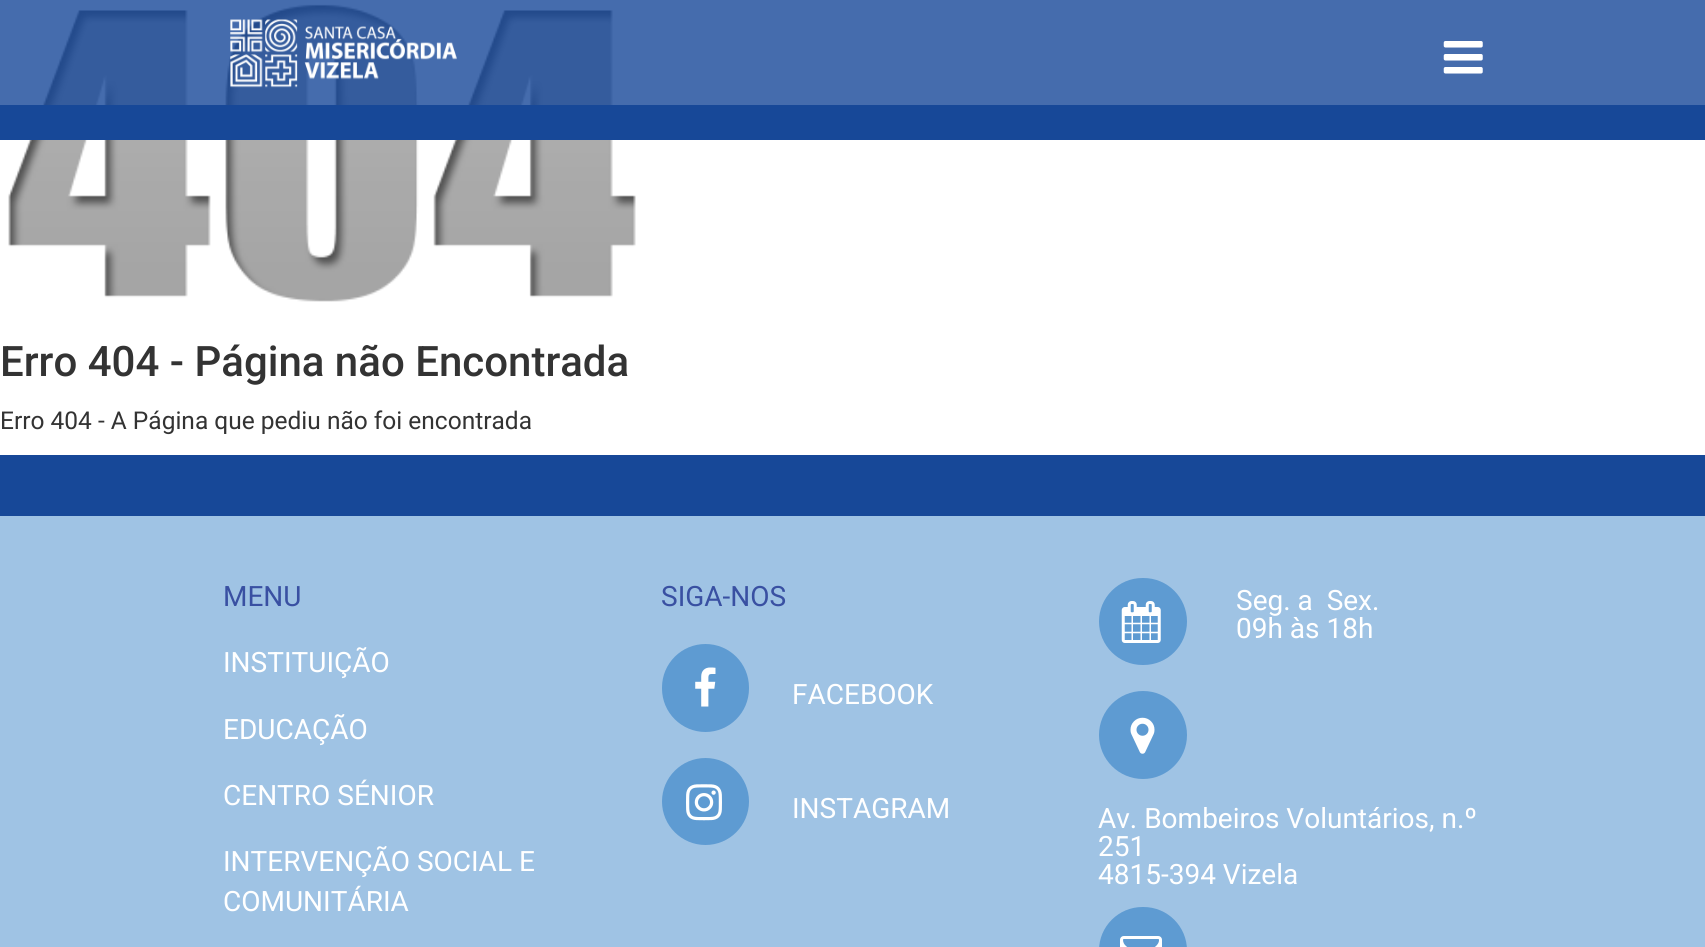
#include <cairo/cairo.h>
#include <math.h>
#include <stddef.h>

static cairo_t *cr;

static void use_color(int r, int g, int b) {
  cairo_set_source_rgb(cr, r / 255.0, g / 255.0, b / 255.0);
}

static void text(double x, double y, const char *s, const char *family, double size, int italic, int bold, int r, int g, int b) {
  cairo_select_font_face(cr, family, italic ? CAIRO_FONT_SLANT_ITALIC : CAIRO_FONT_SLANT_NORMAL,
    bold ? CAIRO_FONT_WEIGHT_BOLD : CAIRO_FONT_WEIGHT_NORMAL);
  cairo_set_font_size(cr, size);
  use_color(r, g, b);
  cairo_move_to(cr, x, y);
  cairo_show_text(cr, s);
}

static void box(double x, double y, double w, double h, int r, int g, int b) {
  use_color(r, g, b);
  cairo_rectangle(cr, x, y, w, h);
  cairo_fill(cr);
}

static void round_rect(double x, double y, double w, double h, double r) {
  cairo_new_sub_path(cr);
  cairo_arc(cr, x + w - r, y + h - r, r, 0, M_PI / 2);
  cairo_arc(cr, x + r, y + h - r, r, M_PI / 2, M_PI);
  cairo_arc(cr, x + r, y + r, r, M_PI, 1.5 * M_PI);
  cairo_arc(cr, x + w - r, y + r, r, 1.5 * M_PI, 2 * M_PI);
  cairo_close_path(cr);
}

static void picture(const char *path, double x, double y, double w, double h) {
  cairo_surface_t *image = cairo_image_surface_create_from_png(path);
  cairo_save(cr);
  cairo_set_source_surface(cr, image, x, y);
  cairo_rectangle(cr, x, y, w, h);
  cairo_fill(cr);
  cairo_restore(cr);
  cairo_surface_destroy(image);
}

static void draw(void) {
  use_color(255, 255, 255);
  cairo_paint(cr);
  picture("img_03.png", 8, 4, 628, 298);
  cairo_set_source_rgba(cr, 0.09, 0.282, 0.596, 0.8);
  cairo_rectangle(cr, 0, 0, 1705, 105);
  cairo_fill(cr);
  picture("img_01.png", 230, 19, 227, 69);
  picture("img_02.png", 1443, 41, 40, 33);
  box(0, 105, 1705, 35, 23, 72, 152);
  box(0, 516, 1705, 431, 159, 195, 228);
  box(0, 455, 1705, 61, 23, 72, 152);
  use_color(94, 155, 210);
  round_rect(662, 644, 87, 88, 43.5);
  cairo_fill(cr);
  picture("img_04.png", 695, 667, 21, 40);
  cairo_arc(cr, 705.5, 801.5, 43.5, 0, 2 * M_PI);
  cairo_fill(cr);
  picture("img_05.png", 686, 784, 36, 37);
  round_rect(1099, 578, 88, 87, 43.5);
  cairo_fill(cr);
  picture("img_06.png", 1121, 601, 40, 42);
  cairo_arc(cr, 1143, 735, 44, 0, 2 * M_PI);
  cairo_fill(cr);
  picture("img_07.png", 1130, 717, 25, 37);
  round_rect(1099, 907, 88, 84, 43.5);
  cairo_fill(cr);
  picture("img_08.png", 1120, 936, 42, 11);
  text(0, 376, "Erro 404 - Página não Encontrada", "Roboto Medium", 42, 0, 0, 51, 51, 51);
  text(0, 429, "Erro 404 - A Página que pediu não foi encontrada", "Roboto", 24.5, 0, 0, 51, 51, 51);
  text(223, 606, "MENU", "Roboto", 28, 0, 0, 57, 80, 162);
  text(223, 672, "INSTITUIÇÃO", "Roboto", 28, 0, 0, 255, 255, 255);
  text(223, 739, "EDUCAÇÃO", "Roboto", 28, 0, 0, 255, 255, 255);
  text(223, 805, "CENTRO SÉNIOR", "Roboto", 28, 0, 0, 255, 255, 255);
  text(223, 871, "INTERVENÇÃO SOCIAL E", "Roboto", 28, 0, 0, 255, 255, 255);
  text(223, 911, "COMUNITÁRIA", "Roboto", 28, 0, 0, 255, 255, 255);
  text(661, 606, "SIGA-NOS", "Roboto", 28, 0, 0, 57, 80, 162);
  text(792, 704, "FACEBOOK", "Roboto", 28, 0, 0, 255, 255, 255);
  text(792, 818, "INSTAGRAM", "Roboto", 28, 0, 0, 255, 255, 255);
  text(1236, 610, "Seg. a  Sex.", "Roboto", 28, 0, 0, 255, 255, 255);
  text(1236, 638, "09h às 18h", "Roboto", 28, 0, 0, 255, 255, 255);
  text(1098, 828, "Av. Bombeiros Voluntários, n.º", "Roboto", 28, 0, 0, 255, 255, 255);
  text(1098, 856, "251", "Roboto", 28, 0, 0, 255, 255, 255);
  text(1098, 884, "4815-394 Vizela", "Roboto", 28, 0, 0, 255, 255, 255);
}

int main(void) {
  cairo_surface_t *surface = cairo_image_surface_create(CAIRO_FORMAT_RGB24, 1705, 947);
  cr = cairo_create(surface);
  cairo_font_options_t *options = cairo_font_options_create();
  cairo_font_options_set_hint_metrics(options, CAIRO_HINT_METRICS_OFF);
  cairo_font_options_set_hint_style(options, CAIRO_HINT_STYLE_NONE);
  cairo_set_font_options(cr, options);
  cairo_set_miter_limit(cr, 4);
  draw();
  cairo_surface_write_to_png(surface, "out.png");
  cairo_font_options_destroy(options);
  cairo_destroy(cr);
  cairo_surface_destroy(surface);
  return 0;
}
